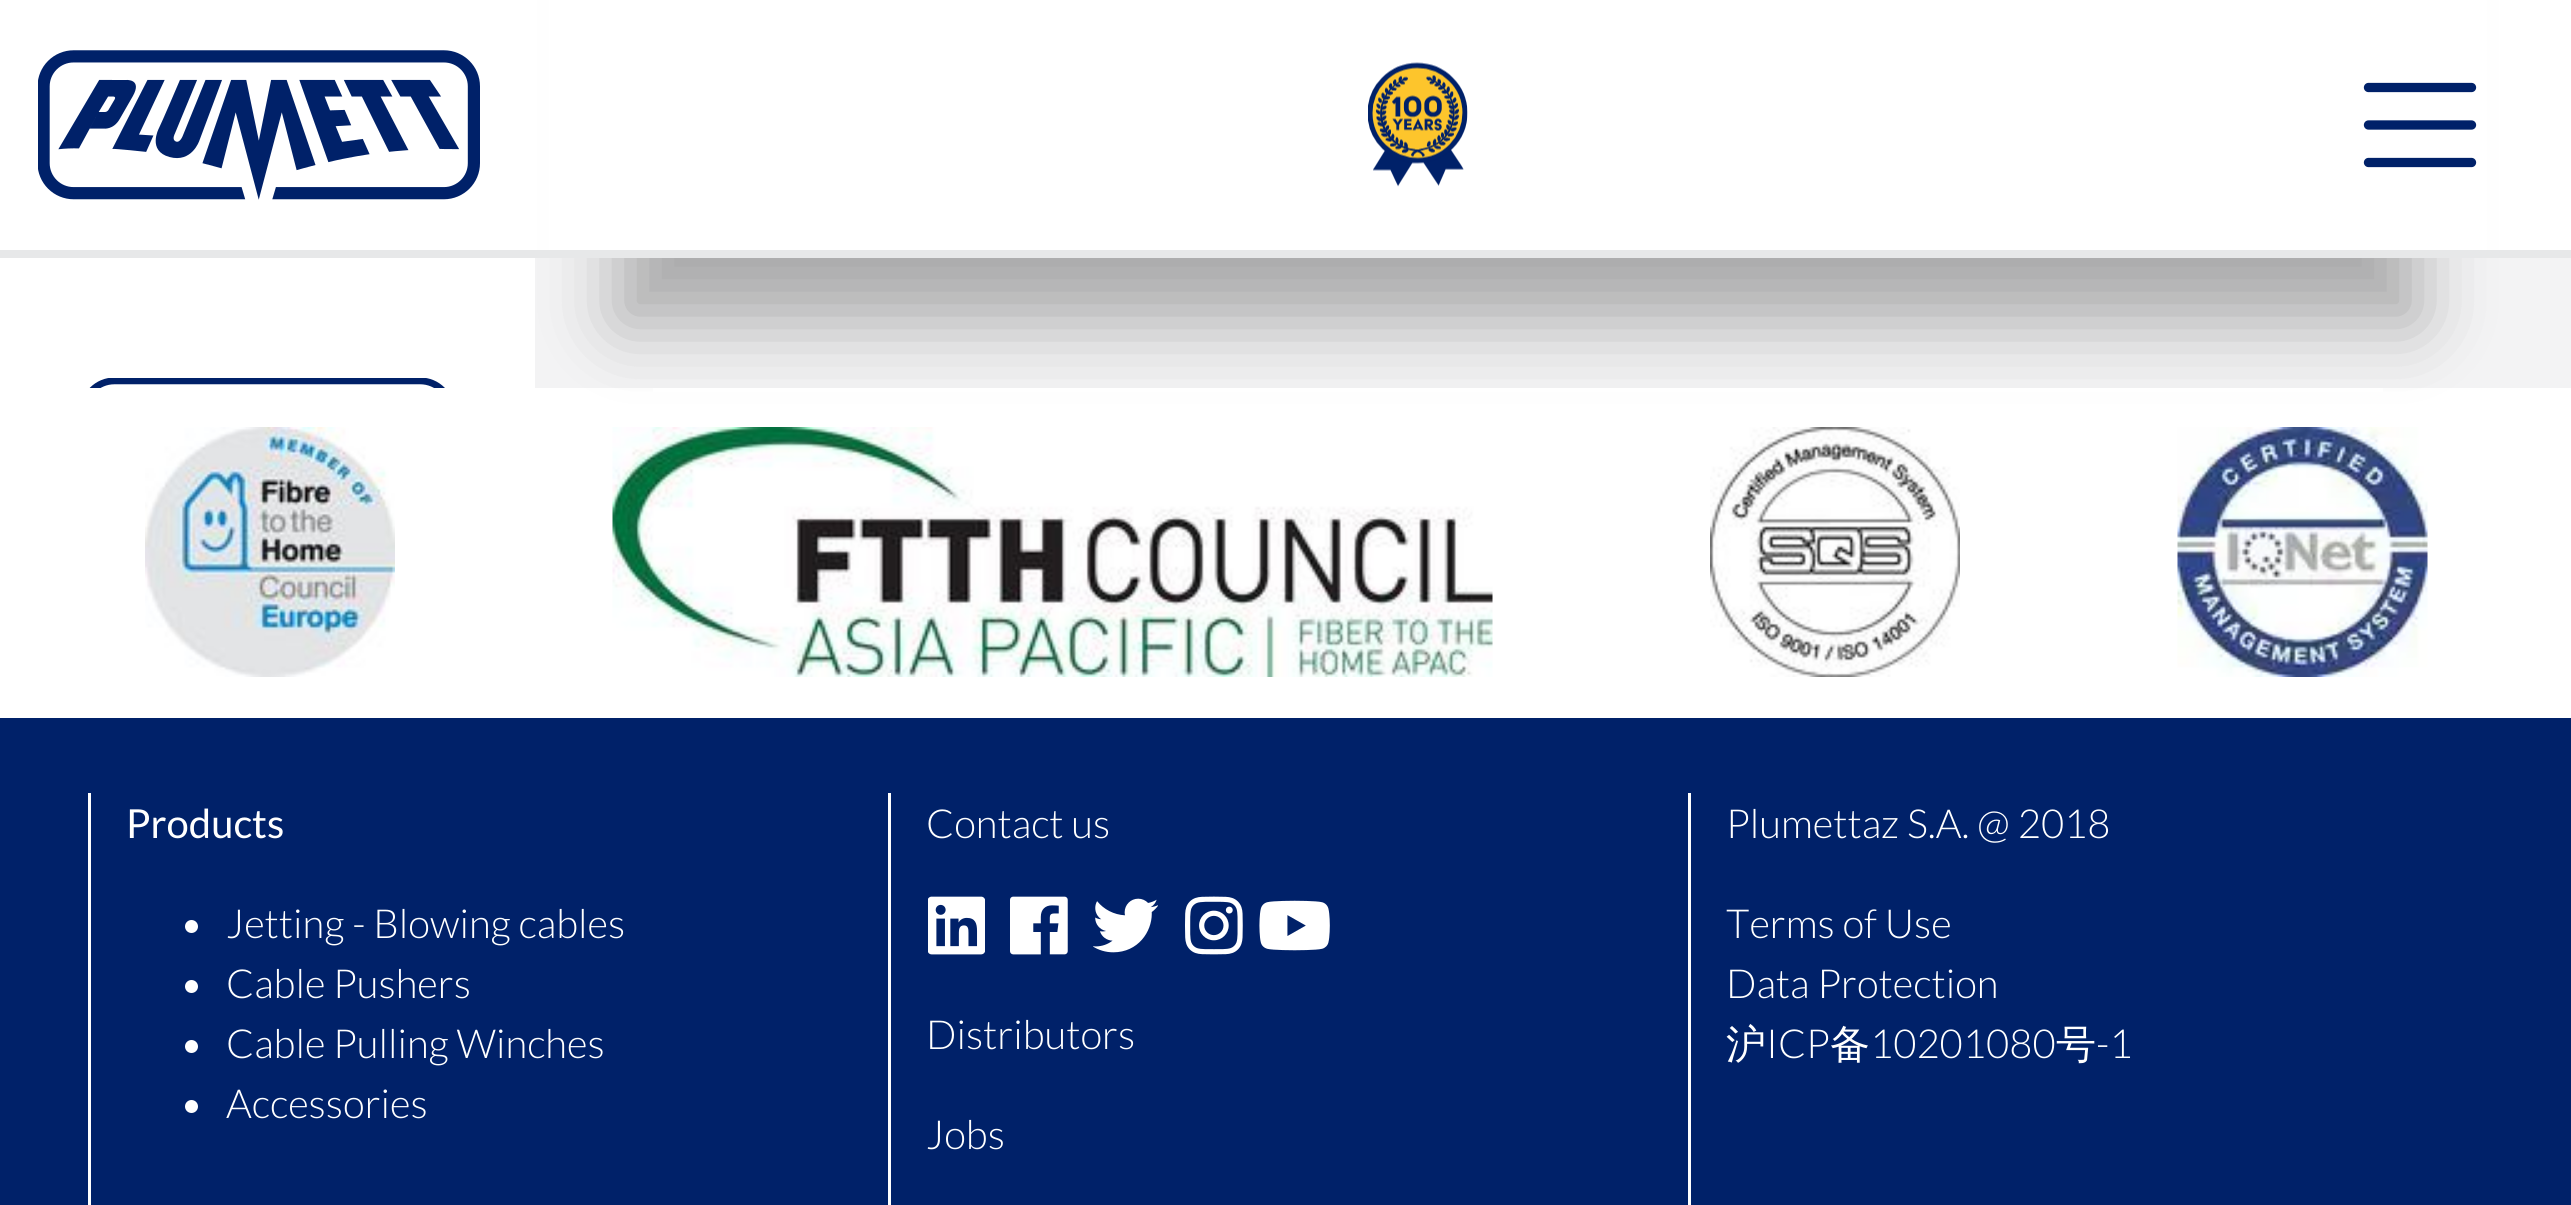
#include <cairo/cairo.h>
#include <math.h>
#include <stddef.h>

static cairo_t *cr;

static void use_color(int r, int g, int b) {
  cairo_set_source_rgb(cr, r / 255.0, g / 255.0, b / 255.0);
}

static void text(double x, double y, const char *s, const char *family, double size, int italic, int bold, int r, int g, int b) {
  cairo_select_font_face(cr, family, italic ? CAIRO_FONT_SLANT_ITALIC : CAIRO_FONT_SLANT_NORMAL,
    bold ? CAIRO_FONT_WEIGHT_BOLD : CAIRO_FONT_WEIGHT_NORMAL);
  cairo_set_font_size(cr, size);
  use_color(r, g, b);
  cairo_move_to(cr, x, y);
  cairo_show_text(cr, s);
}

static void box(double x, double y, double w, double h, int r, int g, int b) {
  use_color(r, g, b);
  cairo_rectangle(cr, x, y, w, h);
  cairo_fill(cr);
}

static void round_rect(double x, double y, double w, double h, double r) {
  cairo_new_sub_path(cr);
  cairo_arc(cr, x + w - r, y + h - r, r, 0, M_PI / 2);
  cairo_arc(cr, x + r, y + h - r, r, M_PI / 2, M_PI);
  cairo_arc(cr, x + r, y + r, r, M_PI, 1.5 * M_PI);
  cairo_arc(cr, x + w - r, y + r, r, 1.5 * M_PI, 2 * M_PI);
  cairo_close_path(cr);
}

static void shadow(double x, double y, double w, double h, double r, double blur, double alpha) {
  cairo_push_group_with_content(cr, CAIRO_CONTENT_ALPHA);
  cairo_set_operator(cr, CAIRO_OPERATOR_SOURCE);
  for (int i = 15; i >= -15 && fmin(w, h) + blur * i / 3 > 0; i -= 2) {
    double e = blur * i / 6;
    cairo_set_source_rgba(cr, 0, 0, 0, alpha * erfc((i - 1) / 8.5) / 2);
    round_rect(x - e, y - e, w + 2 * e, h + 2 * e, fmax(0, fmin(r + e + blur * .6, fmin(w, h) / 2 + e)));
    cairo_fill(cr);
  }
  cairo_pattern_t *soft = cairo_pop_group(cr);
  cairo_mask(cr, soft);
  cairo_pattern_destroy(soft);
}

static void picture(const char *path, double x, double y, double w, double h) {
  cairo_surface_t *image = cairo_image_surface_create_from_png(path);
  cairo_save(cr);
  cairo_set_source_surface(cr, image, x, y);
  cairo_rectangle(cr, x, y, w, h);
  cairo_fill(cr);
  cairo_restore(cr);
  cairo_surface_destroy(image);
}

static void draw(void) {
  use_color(255, 255, 255);
  cairo_paint(cr);
  box(535, 258, 2036, 130, 243, 243, 244);
  use_color(0, 0, 0);
  shadow(618, -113, 1800, 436, 0, 37.5, 0.3);
  box(549, 0, 1938, 250, 255, 255, 255);
  box(0, 250, 2571, 8, 231, 232, 233);
  picture("img_01.png", 38, 50, 442, 150);
  picture("img_02.png", 1368, 62, 100, 125);
  cairo_new_path(cr);
  cairo_move_to(cr, 2368.5, 87.5);
  cairo_line_to(cr, 2471.5, 87.5);
  cairo_move_to(cr, 2368.5, 125);
  cairo_line_to(cr, 2471.5, 125);
  cairo_move_to(cr, 2368.5, 162.5);
  cairo_line_to(cr, 2471.5, 162.5);
  use_color(0, 33, 105);
  cairo_set_line_width(cr, 9.3);
  cairo_set_line_cap(cr, CAIRO_LINE_CAP_ROUND);
  cairo_stroke(cr);
  picture("img_03.png", 89, 378, 356, 10);
  box(653, 388, 1730, 4, 255, 255, 255);
  picture("img_04.png", 145, 427, 250, 250);
  picture("img_05.png", 612, 427, 881, 250);
  picture("img_06.png", 1710, 427, 250, 250);
  picture("img_07.png", 2177, 427, 251, 250);
  box(0, 718, 2571, 487, 0, 33, 105);
  box(88, 793, 3, 412, 255, 255, 255);
  cairo_arc(cr, 191.5, 926.5, 6.5, 0, 2 * M_PI);
  cairo_fill(cr);
  cairo_arc(cr, 191.5, 986.5, 6.5, 0, 2 * M_PI);
  cairo_fill(cr);
  cairo_arc(cr, 191.5, 1046.5, 6.5, 0, 2 * M_PI);
  cairo_fill(cr);
  cairo_arc(cr, 191.5, 1106.5, 6.5, 0, 2 * M_PI);
  cairo_fill(cr);
  box(888, 793, 3, 412, 255, 255, 255);
  picture("img_08.png", 928, 896, 57, 59);
  picture("img_09.png", 1010, 896, 58, 59);
  picture("img_10.png", 1093, 898, 65, 55);
  picture("img_11.png", 1185, 896, 58, 59);
  picture("img_12.png", 1259, 900, 71, 51);
  box(1688, 793, 3, 412, 255, 255, 255);
  text(126, 838, "Products", "Lato", 40, 0, 0, 255, 255, 255);
  text(226, 938, "Jetting - Blowing cables", "Lato Light", 40, 0, 0, 255, 255, 255);
  text(226, 998, "Cable Pushers", "Lato Light", 40, 0, 0, 255, 255, 255);
  text(226, 1058, "Cable Pulling Winches", "Lato Light", 40, 0, 0, 255, 255, 255);
  text(226, 1118, "Accessories", "Lato Light", 40, 0, 0, 255, 255, 255);
  text(926, 838, "Contact us", "Lato Light", 40, 0, 0, 255, 255, 255);
  text(926, 1049, "Distributors", "Lato Light", 40, 0, 0, 255, 255, 255);
  text(926, 1149, "Jobs", "Lato Light", 40, 0, 0, 255, 255, 255);
  text(1726, 838, "Plumettaz S.A. @ 2018", "Lato Light", 40, 0, 0, 255, 255, 255);
  text(1726, 938, "Terms of Use", "Lato Light", 40, 0, 0, 255, 255, 255);
  text(1726, 998, "Data Protection", "Lato Light", 40, 0, 0, 255, 255, 255);
  text(1726, 1058, "沪", "WenQuanYi Zen Hei Medium", 40, 0, 0, 255, 255, 255);
  text(1766, 1058, "ICP", "Lato Light", 40, 0, 0, 255, 255, 255);
  text(1830, 1058, "备", "WenQuanYi Zen Hei Medium", 40, 0, 0, 255, 255, 255);
  text(1870, 1058, "10201080", "Lato Light", 40, 0, 0, 255, 255, 255);
  text(2056, 1058, "号", "WenQuanYi Zen Hei Medium", 40, 0, 0, 255, 255, 255);
  text(2096, 1058, "-1", "Lato Light", 40, 0, 0, 255, 255, 255);
}

int main(void) {
  cairo_surface_t *surface = cairo_image_surface_create(CAIRO_FORMAT_RGB24, 2571, 1205);
  cr = cairo_create(surface);
  cairo_font_options_t *options = cairo_font_options_create();
  cairo_font_options_set_hint_metrics(options, CAIRO_HINT_METRICS_OFF);
  cairo_font_options_set_hint_style(options, CAIRO_HINT_STYLE_NONE);
  cairo_set_font_options(cr, options);
  cairo_set_miter_limit(cr, 4);
  draw();
  cairo_surface_write_to_png(surface, "out.png");
  cairo_font_options_destroy(options);
  cairo_destroy(cr);
  cairo_surface_destroy(surface);
  return 0;
}
